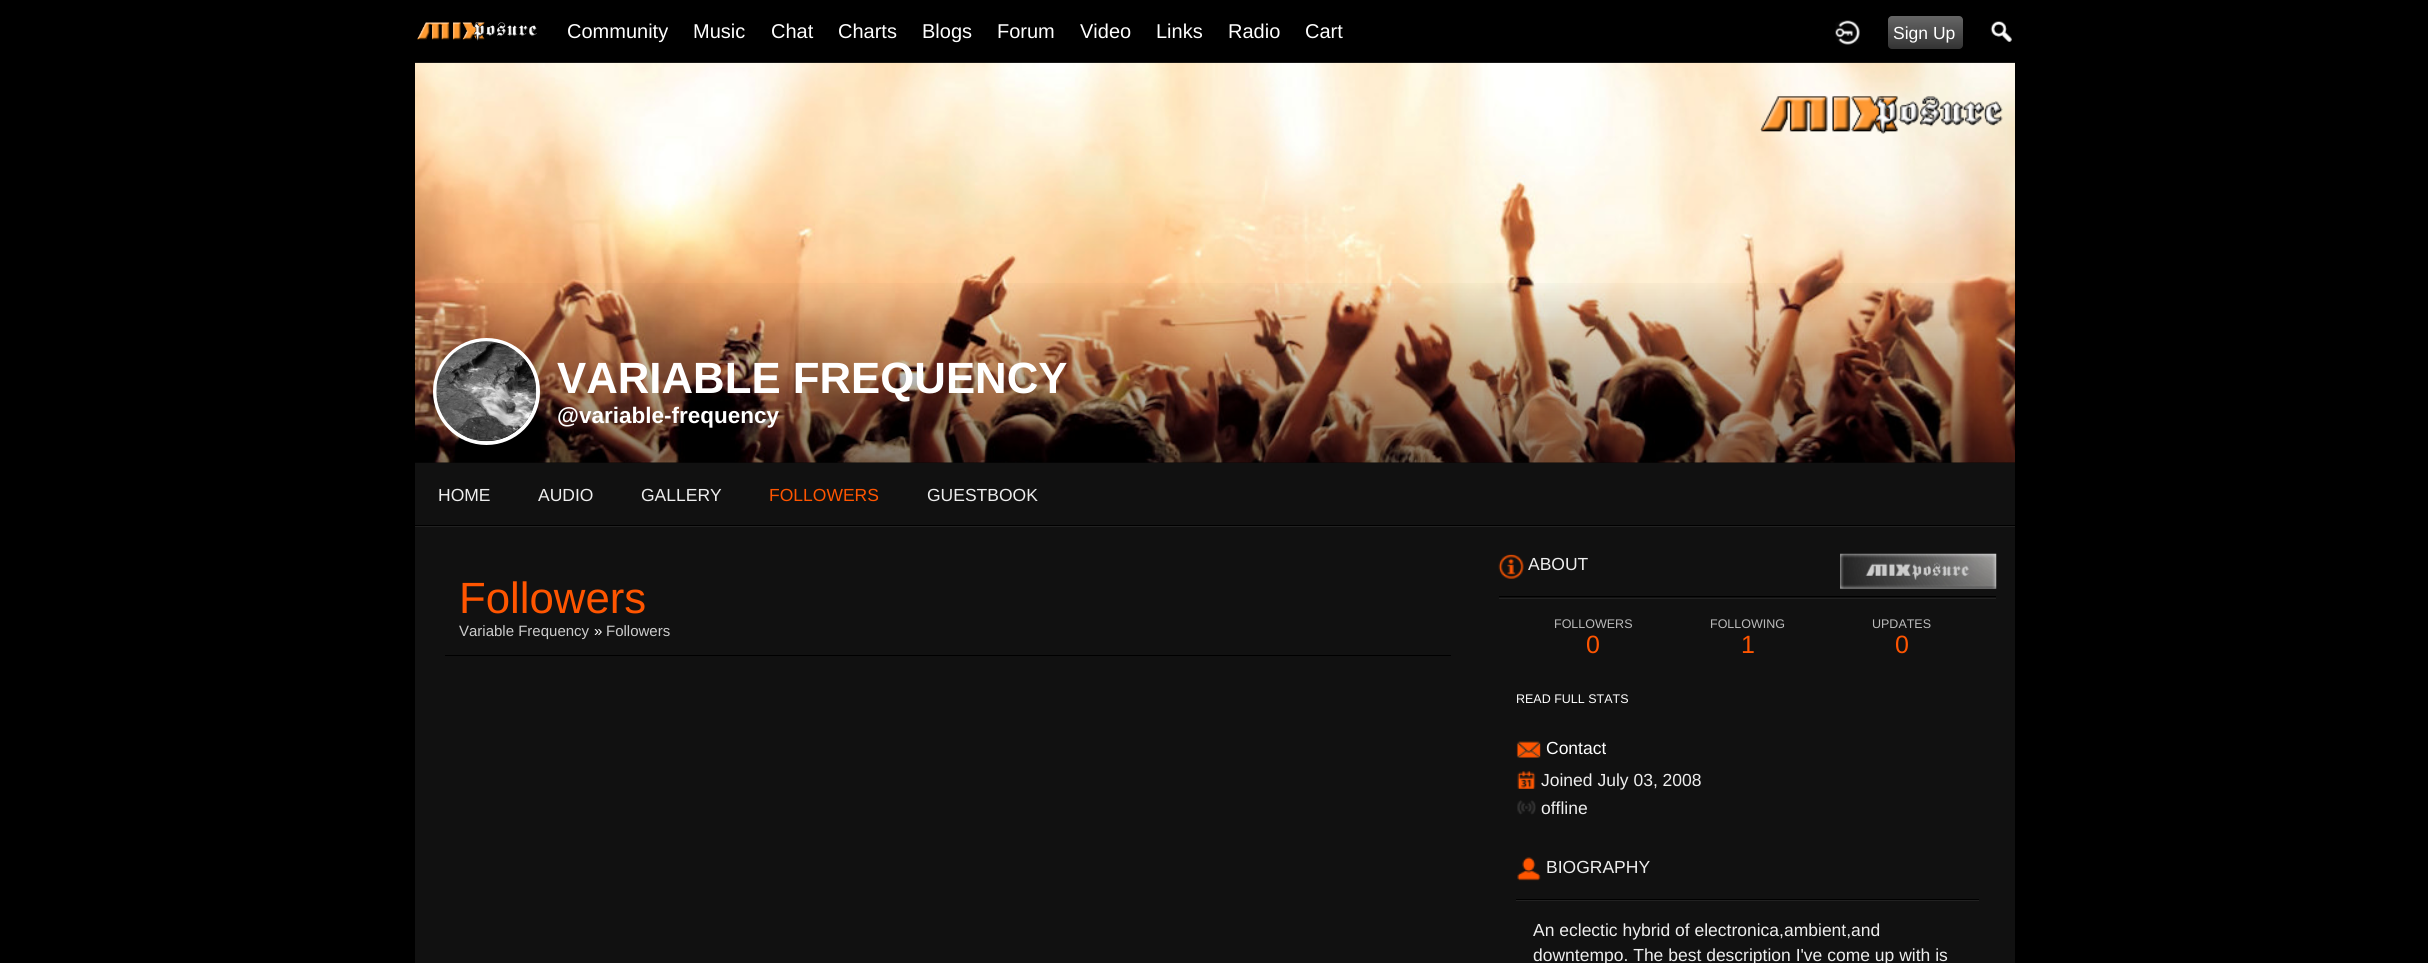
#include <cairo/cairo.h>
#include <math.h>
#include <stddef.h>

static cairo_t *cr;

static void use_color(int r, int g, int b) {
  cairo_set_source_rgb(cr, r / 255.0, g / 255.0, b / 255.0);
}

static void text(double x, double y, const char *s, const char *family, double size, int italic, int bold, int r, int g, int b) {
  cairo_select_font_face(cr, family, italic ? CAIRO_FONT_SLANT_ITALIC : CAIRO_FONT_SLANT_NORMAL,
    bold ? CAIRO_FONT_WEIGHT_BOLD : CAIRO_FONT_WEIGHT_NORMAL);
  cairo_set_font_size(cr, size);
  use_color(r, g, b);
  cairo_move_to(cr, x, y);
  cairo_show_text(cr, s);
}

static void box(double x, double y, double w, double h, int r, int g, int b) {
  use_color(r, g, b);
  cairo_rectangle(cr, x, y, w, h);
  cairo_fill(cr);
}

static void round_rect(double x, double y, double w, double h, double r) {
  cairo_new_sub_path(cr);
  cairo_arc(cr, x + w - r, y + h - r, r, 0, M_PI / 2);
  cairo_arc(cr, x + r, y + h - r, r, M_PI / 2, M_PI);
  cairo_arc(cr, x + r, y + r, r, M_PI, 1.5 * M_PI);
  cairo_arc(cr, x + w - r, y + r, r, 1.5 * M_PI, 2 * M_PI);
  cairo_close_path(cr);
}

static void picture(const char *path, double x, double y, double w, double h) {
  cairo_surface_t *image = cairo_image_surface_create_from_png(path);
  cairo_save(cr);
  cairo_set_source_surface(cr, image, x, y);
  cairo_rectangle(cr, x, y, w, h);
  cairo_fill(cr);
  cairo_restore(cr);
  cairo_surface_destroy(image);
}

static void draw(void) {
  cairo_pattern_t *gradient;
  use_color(0, 0, 0);
  cairo_paint(cr);
  box(415, 462, 1600, 501, 17, 17, 17);
  picture("img_04.png", 415, 62, 1600, 401);
  cairo_set_source_rgba(cr, 0, 0, 0, 0.8);
  cairo_rectangle(cr, 415, 62, 1600, 1);
  cairo_fill(cr);
  picture("img_01.png", 417, 22, 120, 19);
  picture("img_02.png", 1835, 20, 25, 25);
  gradient = cairo_pattern_create_linear(1925, 16, 1925, 49);
  cairo_pattern_add_color_stop_rgba(gradient, 0, 0.4, 0.4, 0.4, 1);
  cairo_pattern_add_color_stop_rgba(gradient, 1, 0.2, 0.2, 0.2, 1);
  cairo_set_source(cr, gradient);
  cairo_pattern_destroy(gradient);
  round_rect(1888, 16, 75, 33, 4);
  cairo_fill(cr);
  picture("img_03.png", 1990, 21, 22, 21);
  gradient = cairo_pattern_create_linear(1215, 275, 1215, 463);
  cairo_pattern_add_color_stop_rgba(gradient, 0, 0, 0, 0, 0);
  cairo_pattern_add_color_stop_rgba(gradient, 1, 0, 0, 0, 0.5);
  cairo_set_source(cr, gradient);
  cairo_pattern_destroy(gradient);
  cairo_rectangle(cr, 415, 283, 1600, 180);
  cairo_fill(cr);
  cairo_arc(cr, 486.5, 391.5, 51.5, 0, 2 * M_PI);
  use_color(255, 255, 255);
  cairo_set_line_width(cr, 4);
  cairo_stroke(cr);
  picture("img_05.png", 436, 341, 101, 101);
  box(415, 525, 1600, 1, 0, 0, 0);
  box(415, 526, 1600, 1, 34, 34, 34);
  box(445, 655, 1006, 1, 0, 0, 0);
  box(1499, 596, 497, 1, 0, 0, 0);
  picture("img_06.png", 1498, 554, 26, 25);
  picture("img_07.png", 1840, 553, 157, 36);
  box(1499, 598, 497, 1, 34, 34, 34);
  picture("img_08.png", 1516, 741, 25, 17);
  picture("img_09.png", 1517, 771, 19, 18);
  picture("img_10.png", 1517, 800, 19, 15);
  box(1516, 899, 463, 1, 0, 0, 0);
  picture("img_11.png", 1517, 857, 24, 24);
  box(1516, 900, 463, 1, 34, 34, 34);
  text(567, 38, "Community", "Liberation Sans", 20, 0, 0, 255, 255, 255);
  text(693, 38, "Music", "Liberation Sans", 20, 0, 0, 255, 255, 255);
  text(771, 38, "Chat", "Liberation Sans", 20, 0, 0, 255, 255, 255);
  text(838, 38, "Charts", "Liberation Sans", 20, 0, 0, 255, 255, 255);
  text(922, 38, "Blogs", "Liberation Sans", 20, 0, 0, 255, 255, 255);
  text(997, 38, "Forum", "Liberation Sans", 20, 0, 0, 255, 255, 255);
  text(1080, 38, "Video", "Liberation Sans", 20, 0, 0, 255, 255, 255);
  text(1156, 38, "Links", "Liberation Sans", 20, 0, 0, 255, 255, 255);
  text(1228, 38, "Radio", "Liberation Sans", 20, 0, 0, 255, 255, 255);
  text(1305, 38, "Cart", "Liberation Sans", 20, 0, 0, 255, 255, 255);
  text(1893, 39, "Sign Up", "Liberation Sans", 17.5, 0, 0, 255, 255, 255);
  text(557, 393, "VARIABLE FREQUENCY", "Liberation Sans", 43.75, 0, 1, 255, 255, 255);
  text(557, 423, "@variable-frequency", "Liberation Sans", 22.5, 0, 1, 255, 255, 255);
  text(438, 501, "HOME", "Liberation Sans", 17.5, 0, 0, 238, 238, 238);
  text(538, 501, "AUDIO", "Liberation Sans", 17.5, 0, 0, 238, 238, 238);
  text(641, 501, "GALLERY", "Liberation Sans", 17.5, 0, 0, 238, 238, 238);
  text(769, 501, "FOLLOWERS", "Liberation Sans", 17.5, 0, 0, 255, 85, 0);
  text(927, 501, "GUESTBOOK", "Liberation Sans", 17.5, 0, 0, 238, 238, 238);
  text(459, 613, "Followers", "Liberation Sans", 43.75, 0, 0, 255, 85, 0);
  text(459, 636, "Variable Frequency", "Liberation Sans", 15, 0, 0, 204, 204, 204);
  text(594, 636, "»", "Liberation Sans", 15, 0, 0, 255, 255, 255);
  text(606, 636, "Followers", "Liberation Sans", 15, 0, 0, 204, 204, 204);
  text(1528, 570, "ABOUT", "Liberation Sans", 17.5, 0, 0, 238, 238, 238);
  text(1554, 628, "FOLLOWERS", "Liberation Sans", 12.5, 0, 0, 187, 187, 187);
  text(1586, 653, "0", "Liberation Sans", 25, 0, 0, 255, 85, 0);
  text(1710, 628, "FOLLOWING", "Liberation Sans", 12.5, 0, 0, 187, 187, 187);
  text(1741, 653, "1", "Liberation Sans", 25, 0, 0, 255, 85, 0);
  text(1872, 628, "UPDATES", "Liberation Sans", 12.5, 0, 0, 187, 187, 187);
  text(1895, 653, "0", "Liberation Sans", 25, 0, 0, 255, 85, 0);
  text(1516, 703, "READ FULL STATS", "Liberation Sans", 12.5, 0, 0, 255, 255, 255);
  text(1546, 754, "Contact", "Liberation Sans", 17.5, 0, 0, 255, 255, 255);
  text(1541, 786, "Joined July 03, 2008", "Liberation Sans", 17.5, 0, 0, 238, 238, 238);
  text(1541, 814, "offline", "Liberation Sans", 17.5, 0, 0, 238, 238, 238);
  text(1546, 873, "BIOGRAPHY", "Liberation Sans", 17.5, 0, 0, 238, 238, 238);
  text(1533, 936, "An eclectic hybrid of electronica,ambient,and", "Liberation Sans", 17.5, 0, 0, 238, 238, 238);
  text(1533, 961, "downtempo. The best description I've come up with is", "Liberation Sans", 17.5, 0, 0, 238, 238, 238);
}

int main(void) {
  cairo_surface_t *surface = cairo_image_surface_create(CAIRO_FORMAT_RGB24, 2428, 963);
  cr = cairo_create(surface);
  cairo_font_options_t *options = cairo_font_options_create();
  cairo_font_options_set_hint_metrics(options, CAIRO_HINT_METRICS_OFF);
  cairo_font_options_set_hint_style(options, CAIRO_HINT_STYLE_NONE);
  cairo_set_font_options(cr, options);
  cairo_set_miter_limit(cr, 4);
  draw();
  cairo_surface_write_to_png(surface, "out.png");
  cairo_font_options_destroy(options);
  cairo_destroy(cr);
  cairo_surface_destroy(surface);
  return 0;
}
